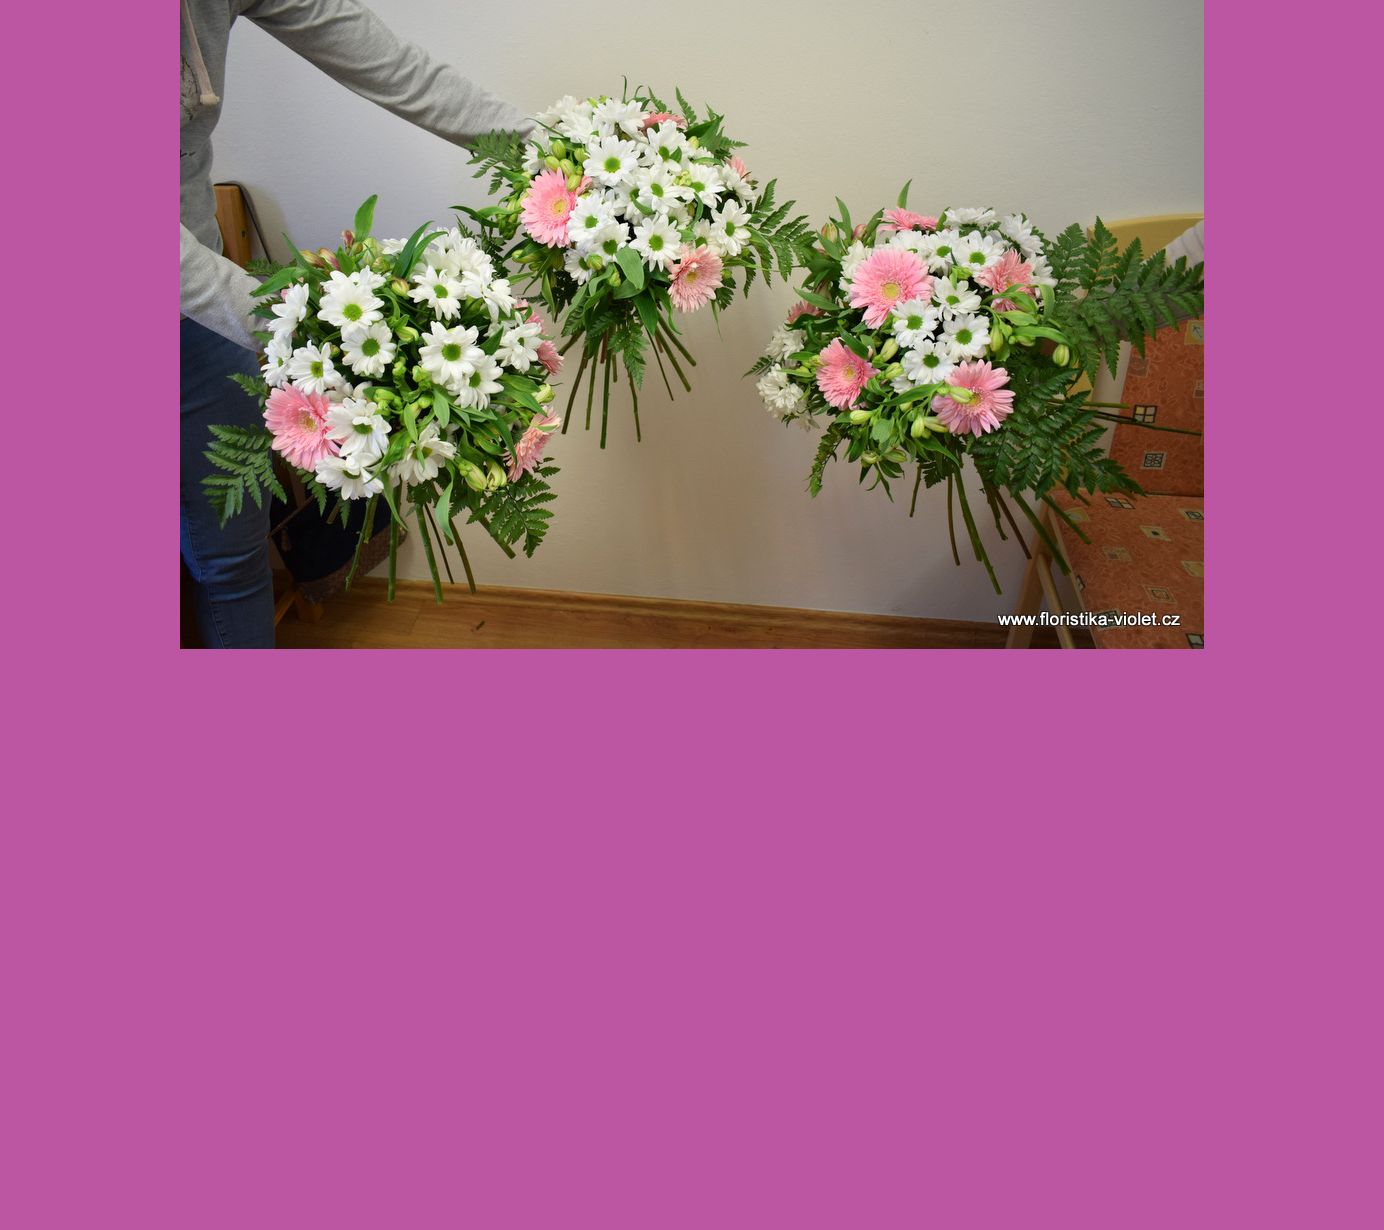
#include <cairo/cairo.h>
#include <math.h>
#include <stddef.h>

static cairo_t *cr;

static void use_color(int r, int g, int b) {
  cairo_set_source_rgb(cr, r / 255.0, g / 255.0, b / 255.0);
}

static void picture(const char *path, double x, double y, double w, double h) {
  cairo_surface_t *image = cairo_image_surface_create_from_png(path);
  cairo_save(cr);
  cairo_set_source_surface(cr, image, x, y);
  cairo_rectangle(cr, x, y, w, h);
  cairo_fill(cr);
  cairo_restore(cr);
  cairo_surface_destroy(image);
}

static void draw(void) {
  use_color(188, 86, 163);
  cairo_paint(cr);
  picture("img_01.png", 180, 0, 1024, 649);
}

int main(void) {
  cairo_surface_t *surface = cairo_image_surface_create(CAIRO_FORMAT_RGB24, 1384, 1230);
  cr = cairo_create(surface);
  cairo_font_options_t *options = cairo_font_options_create();
  cairo_font_options_set_hint_metrics(options, CAIRO_HINT_METRICS_OFF);
  cairo_font_options_set_hint_style(options, CAIRO_HINT_STYLE_NONE);
  cairo_set_font_options(cr, options);
  cairo_set_miter_limit(cr, 4);
  draw();
  cairo_surface_write_to_png(surface, "out.png");
  cairo_font_options_destroy(options);
  cairo_destroy(cr);
  cairo_surface_destroy(surface);
  return 0;
}
